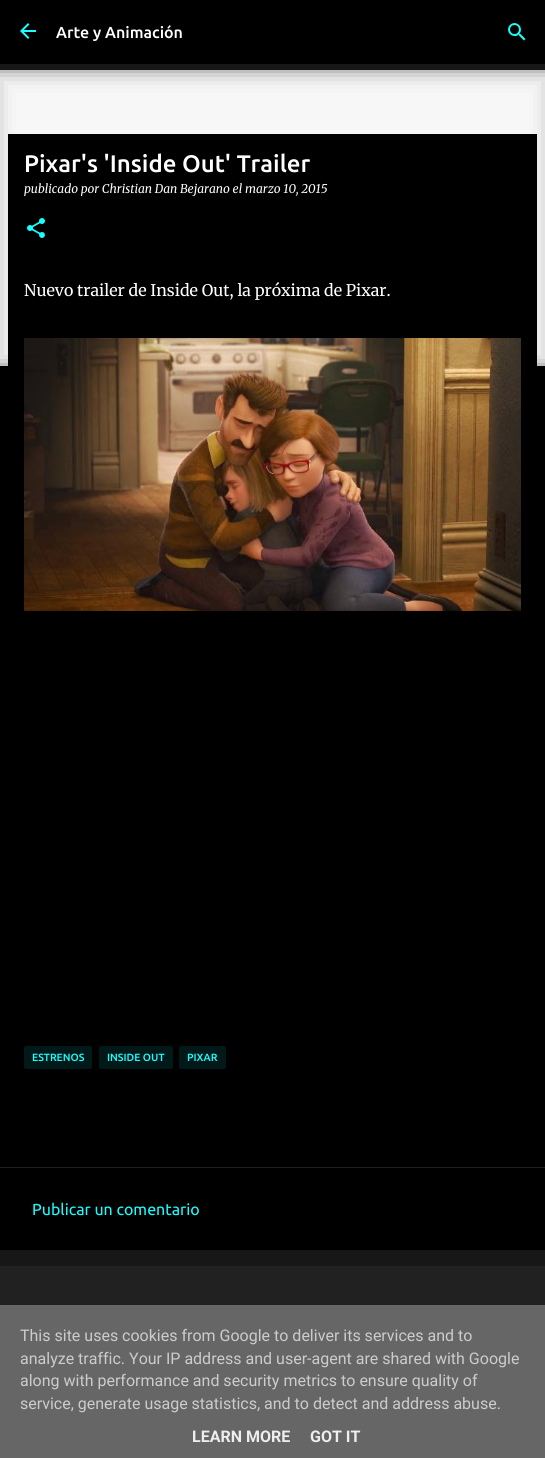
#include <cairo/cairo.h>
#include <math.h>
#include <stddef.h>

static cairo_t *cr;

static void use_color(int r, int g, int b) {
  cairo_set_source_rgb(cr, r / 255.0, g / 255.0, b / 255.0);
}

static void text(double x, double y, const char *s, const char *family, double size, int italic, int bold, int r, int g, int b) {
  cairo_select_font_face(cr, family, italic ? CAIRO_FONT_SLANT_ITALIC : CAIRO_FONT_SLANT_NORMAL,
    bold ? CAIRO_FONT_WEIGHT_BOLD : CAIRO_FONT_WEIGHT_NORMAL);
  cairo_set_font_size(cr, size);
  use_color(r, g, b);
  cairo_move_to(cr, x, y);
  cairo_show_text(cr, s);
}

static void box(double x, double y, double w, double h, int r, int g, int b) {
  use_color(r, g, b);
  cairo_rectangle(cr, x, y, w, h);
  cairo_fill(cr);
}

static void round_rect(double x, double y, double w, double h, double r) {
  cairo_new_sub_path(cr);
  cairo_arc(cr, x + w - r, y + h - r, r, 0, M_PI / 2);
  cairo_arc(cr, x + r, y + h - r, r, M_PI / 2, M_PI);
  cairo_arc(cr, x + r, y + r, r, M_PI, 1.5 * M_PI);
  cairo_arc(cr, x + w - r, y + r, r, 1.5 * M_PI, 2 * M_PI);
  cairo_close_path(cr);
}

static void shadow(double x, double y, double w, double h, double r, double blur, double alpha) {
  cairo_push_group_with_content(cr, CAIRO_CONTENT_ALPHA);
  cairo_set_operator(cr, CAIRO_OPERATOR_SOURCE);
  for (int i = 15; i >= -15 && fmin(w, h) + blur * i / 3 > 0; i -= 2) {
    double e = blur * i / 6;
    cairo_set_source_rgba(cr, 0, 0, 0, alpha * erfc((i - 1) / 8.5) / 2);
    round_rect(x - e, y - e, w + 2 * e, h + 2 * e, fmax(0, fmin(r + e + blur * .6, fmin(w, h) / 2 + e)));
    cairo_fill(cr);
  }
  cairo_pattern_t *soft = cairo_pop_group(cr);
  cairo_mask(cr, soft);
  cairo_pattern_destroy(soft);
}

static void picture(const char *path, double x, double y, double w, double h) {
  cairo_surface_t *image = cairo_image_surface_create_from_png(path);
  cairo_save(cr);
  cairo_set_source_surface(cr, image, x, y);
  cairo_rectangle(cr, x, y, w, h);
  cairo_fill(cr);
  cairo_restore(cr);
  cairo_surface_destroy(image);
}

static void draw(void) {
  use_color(23, 23, 23);
  cairo_paint(cr);
  cairo_save(cr);
  cairo_rectangle(cr, 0, 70, 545, 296);
  cairo_clip(cr);
  use_color(247, 247, 247);
  shadow(-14, 63, 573, 310, 0, 12, 1);
  cairo_restore(cr);
  box(0, 0, 545, 64, 0, 0, 0);
  picture("img_01.png", 20, 23, 16, 16);
  picture("img_02.png", 508, 23, 18, 18);
  box(0, 366, 545, 801, 0, 0, 0);
  box(8, 134, 529, 232, 0, 0, 0);
  picture("img_03.png", 27, 218, 18, 20);
  picture("img_04.png", 24, 338, 497, 273);
  cairo_set_source_rgba(cr, 0.094, 1, 1, 0.1);
  round_rect(24, 1046, 68, 23, 2);
  cairo_fill(cr);
  round_rect(99, 1046, 74, 23, 2);
  cairo_fill(cr);
  round_rect(179, 1046, 47, 23, 2);
  cairo_fill(cr);
  box(0, 1168, 545, 82, 0, 0, 0);
  box(0, 1167, 545, 1, 31, 31, 31);
  box(0, 1266, 545, 39, 33, 33, 33);
  box(0, 1305, 545, 153, 102, 102, 102);
  text(56, 38, "Arte y Animación", "Ubuntu Medium", 16, 0, 0, 255, 255, 255);
  text(24, 172, "Pixar's 'Inside Out' Trailer", "Ubuntu Medium", 24, 0, 0, 255, 255, 255);
  text(24, 193, "publicado por Christian Dan Bejarano el marzo 10, 2015", "Merriweather", 12, 1, 0, 255, 255, 255);
  text(24, 296, "Nuevo trailer de Inside Out, la próxima de Pixar.", "Merriweather", 16, 0, 0, 255, 255, 255);
  text(32, 1061, "ESTRENOS", "Ubuntu Medium", 10.5, 0, 0, 24, 255, 255);
  text(107, 1061, "INSIDE OUT", "Ubuntu Medium", 10.5, 0, 0, 24, 255, 255);
  text(187, 1061, "PIXAR", "Ubuntu Medium", 10.5, 0, 0, 24, 255, 255);
  text(32, 1215, "Publicar un comentario", "Ubuntu", 16, 0, 0, 24, 255, 255);
  text(20, 1341, "This site uses cookies from Google to deliver its services and to", "Roboto", 16, 0, 0, 204, 204, 204);
  text(20, 1364, "analyze traffic. Your IP address and user-agent are shared with Google", "Roboto", 16, 0, 0, 204, 204, 204);
  text(20, 1386, "along with performance and security metrics to ensure quality of", "Roboto", 16, 0, 0, 204, 204, 204);
  text(20, 1409, "service, generate usage statistics, and to detect and address abuse.", "Roboto", 16, 0, 0, 204, 204, 204);
  text(192, 1442, "LEARN MORE", "Roboto", 16, 0, 1, 238, 238, 238);
  text(310, 1442, "GOT IT", "Roboto", 16, 0, 1, 238, 238, 238);
}

int main(void) {
  cairo_surface_t *surface = cairo_image_surface_create(CAIRO_FORMAT_RGB24, 545, 1458);
  cr = cairo_create(surface);
  cairo_font_options_t *options = cairo_font_options_create();
  cairo_font_options_set_hint_metrics(options, CAIRO_HINT_METRICS_OFF);
  cairo_font_options_set_hint_style(options, CAIRO_HINT_STYLE_NONE);
  cairo_set_font_options(cr, options);
  cairo_set_miter_limit(cr, 4);
  draw();
  cairo_surface_write_to_png(surface, "out.png");
  cairo_font_options_destroy(options);
  cairo_destroy(cr);
  cairo_surface_destroy(surface);
  return 0;
}
